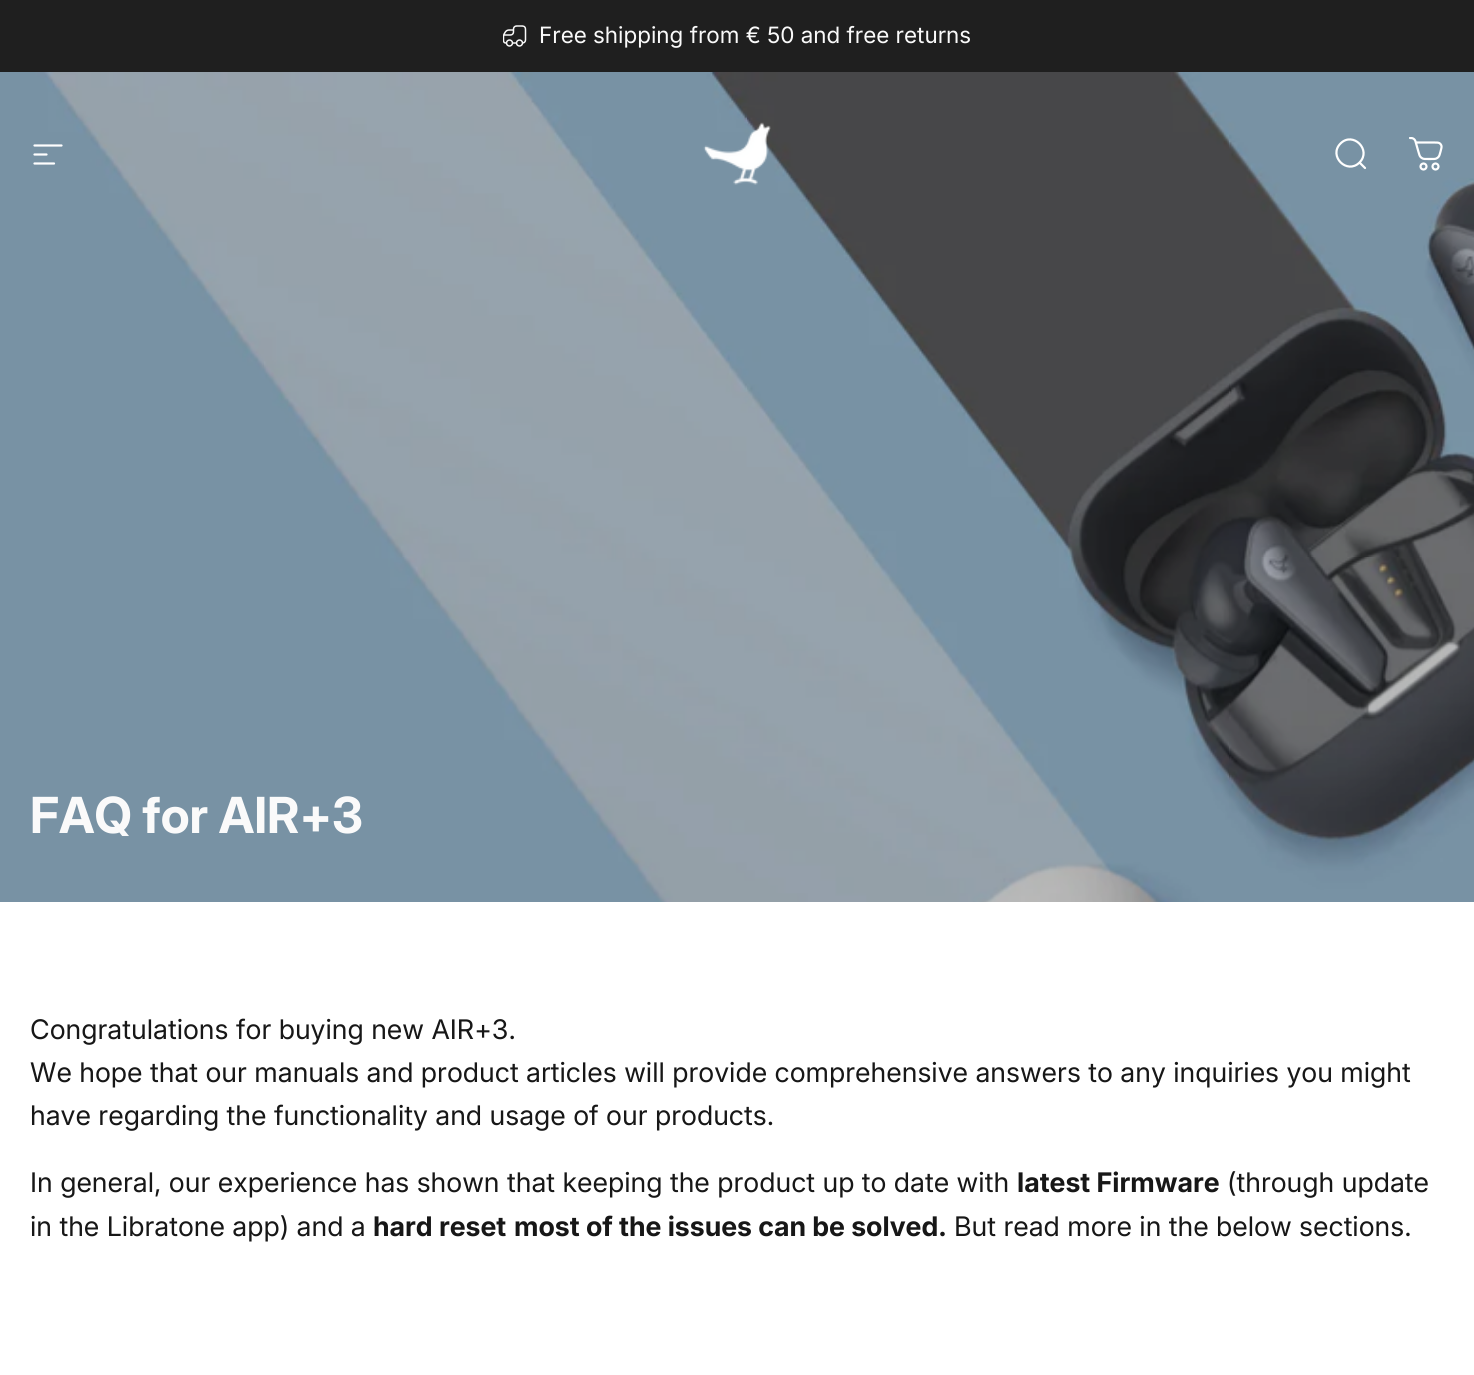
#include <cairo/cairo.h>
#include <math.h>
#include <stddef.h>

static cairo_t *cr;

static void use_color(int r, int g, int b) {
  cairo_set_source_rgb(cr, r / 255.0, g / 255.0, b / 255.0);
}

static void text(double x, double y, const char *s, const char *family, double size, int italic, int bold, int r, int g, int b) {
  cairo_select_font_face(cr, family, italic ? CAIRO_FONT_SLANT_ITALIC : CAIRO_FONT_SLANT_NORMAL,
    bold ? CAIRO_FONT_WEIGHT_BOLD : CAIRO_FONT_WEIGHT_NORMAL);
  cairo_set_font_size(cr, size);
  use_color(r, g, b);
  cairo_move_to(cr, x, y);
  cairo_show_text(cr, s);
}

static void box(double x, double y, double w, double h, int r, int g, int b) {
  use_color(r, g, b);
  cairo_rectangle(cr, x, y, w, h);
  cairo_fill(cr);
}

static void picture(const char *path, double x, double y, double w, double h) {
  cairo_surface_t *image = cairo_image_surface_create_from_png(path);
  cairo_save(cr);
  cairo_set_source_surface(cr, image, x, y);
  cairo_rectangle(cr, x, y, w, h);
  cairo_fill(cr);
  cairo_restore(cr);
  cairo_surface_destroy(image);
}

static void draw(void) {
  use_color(255, 255, 255);
  cairo_paint(cr);
  box(0, 0, 1474, 72, 31, 31, 31);
  picture("img_01.png", 503, 25, 24, 22);
  picture("img_04.png", 0, 72, 1474, 830);
  cairo_new_path(cr);
  cairo_move_to(cr, 34.5, 145.5);
  cairo_line_to(cr, 61.5, 145.5);
  cairo_move_to(cr, 34.5, 154.5);
  cairo_line_to(cr, 46.5, 154.5);
  cairo_move_to(cr, 34.5, 163.5);
  cairo_line_to(cr, 54, 163.5);
  use_color(255, 255, 255);
  cairo_set_line_width(cr, 2.2);
  cairo_set_line_cap(cr, CAIRO_LINE_CAP_ROUND);
  cairo_stroke(cr);
  picture("img_02.png", 703, 122, 68, 63);
  cairo_new_path(cr);
  cairo_move_to(cr, 1365, 168);
  cairo_line_to(cr, 1359.5, 162.5);
  cairo_move_to(cr, 1359.5, 162.5);
  cairo_curve_to(cr, 1372, 150, 1353, 131, 1340.5, 143.5);
  cairo_curve_to(cr, 1328, 156, 1347, 175, 1359.5, 162.5);
  cairo_close_path(cr);
  cairo_stroke(cr);
  picture("img_03.png", 1409, 137, 34, 34);
  text(539, 43, "Free shipping from € 50 and free returns", "Inter", 22.5, 0, 0, 250, 250, 250);
  text(30, 833, "FAQ for AIR+3", "Inter", 49.75, 0, 1, 250, 250, 250);
  text(30, 1039, "Congratulations for buying new AIR+3.", "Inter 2", 27, 0, 0, 23, 23, 23);
  text(30, 1082, "We hope that our manuals and product articles will provide comprehensive answers to any inquiries you might", "Inter 2", 27, 0, 0, 23, 23, 23);
  text(30, 1125, "have regarding the functionality and usage of our products.", "Inter 2", 27, 0, 0, 23, 23, 23);
  text(30, 1192, "In general, our experience has shown that keeping the product up to date with", "Inter 2", 27, 0, 0, 23, 23, 23);
  text(1017, 1192, "latest Firmware", "Inter 2", 27, 0, 1, 23, 23, 23);
  text(1227, 1192, "(through update", "Inter 2", 27, 0, 0, 23, 23, 23);
  text(30, 1236, "in the Libratone app) and a", "Inter 2", 27, 0, 0, 23, 23, 23);
  text(373, 1236, "hard reset", "Inter 2", 27, 0, 1, 23, 23, 23);
  text(514, 1236, "most of the issues can be solved.", "Inter 2", 27, 0, 1, 23, 23, 23);
  text(954, 1236, "But read more in the below sections.", "Inter 2", 27, 0, 0, 23, 23, 23);
}

int main(void) {
  cairo_surface_t *surface = cairo_image_surface_create(CAIRO_FORMAT_RGB24, 1474, 1375);
  cr = cairo_create(surface);
  cairo_font_options_t *options = cairo_font_options_create();
  cairo_font_options_set_hint_metrics(options, CAIRO_HINT_METRICS_OFF);
  cairo_font_options_set_hint_style(options, CAIRO_HINT_STYLE_NONE);
  cairo_set_font_options(cr, options);
  cairo_set_miter_limit(cr, 4);
  draw();
  cairo_surface_write_to_png(surface, "out.png");
  cairo_font_options_destroy(options);
  cairo_destroy(cr);
  cairo_surface_destroy(surface);
  return 0;
}
